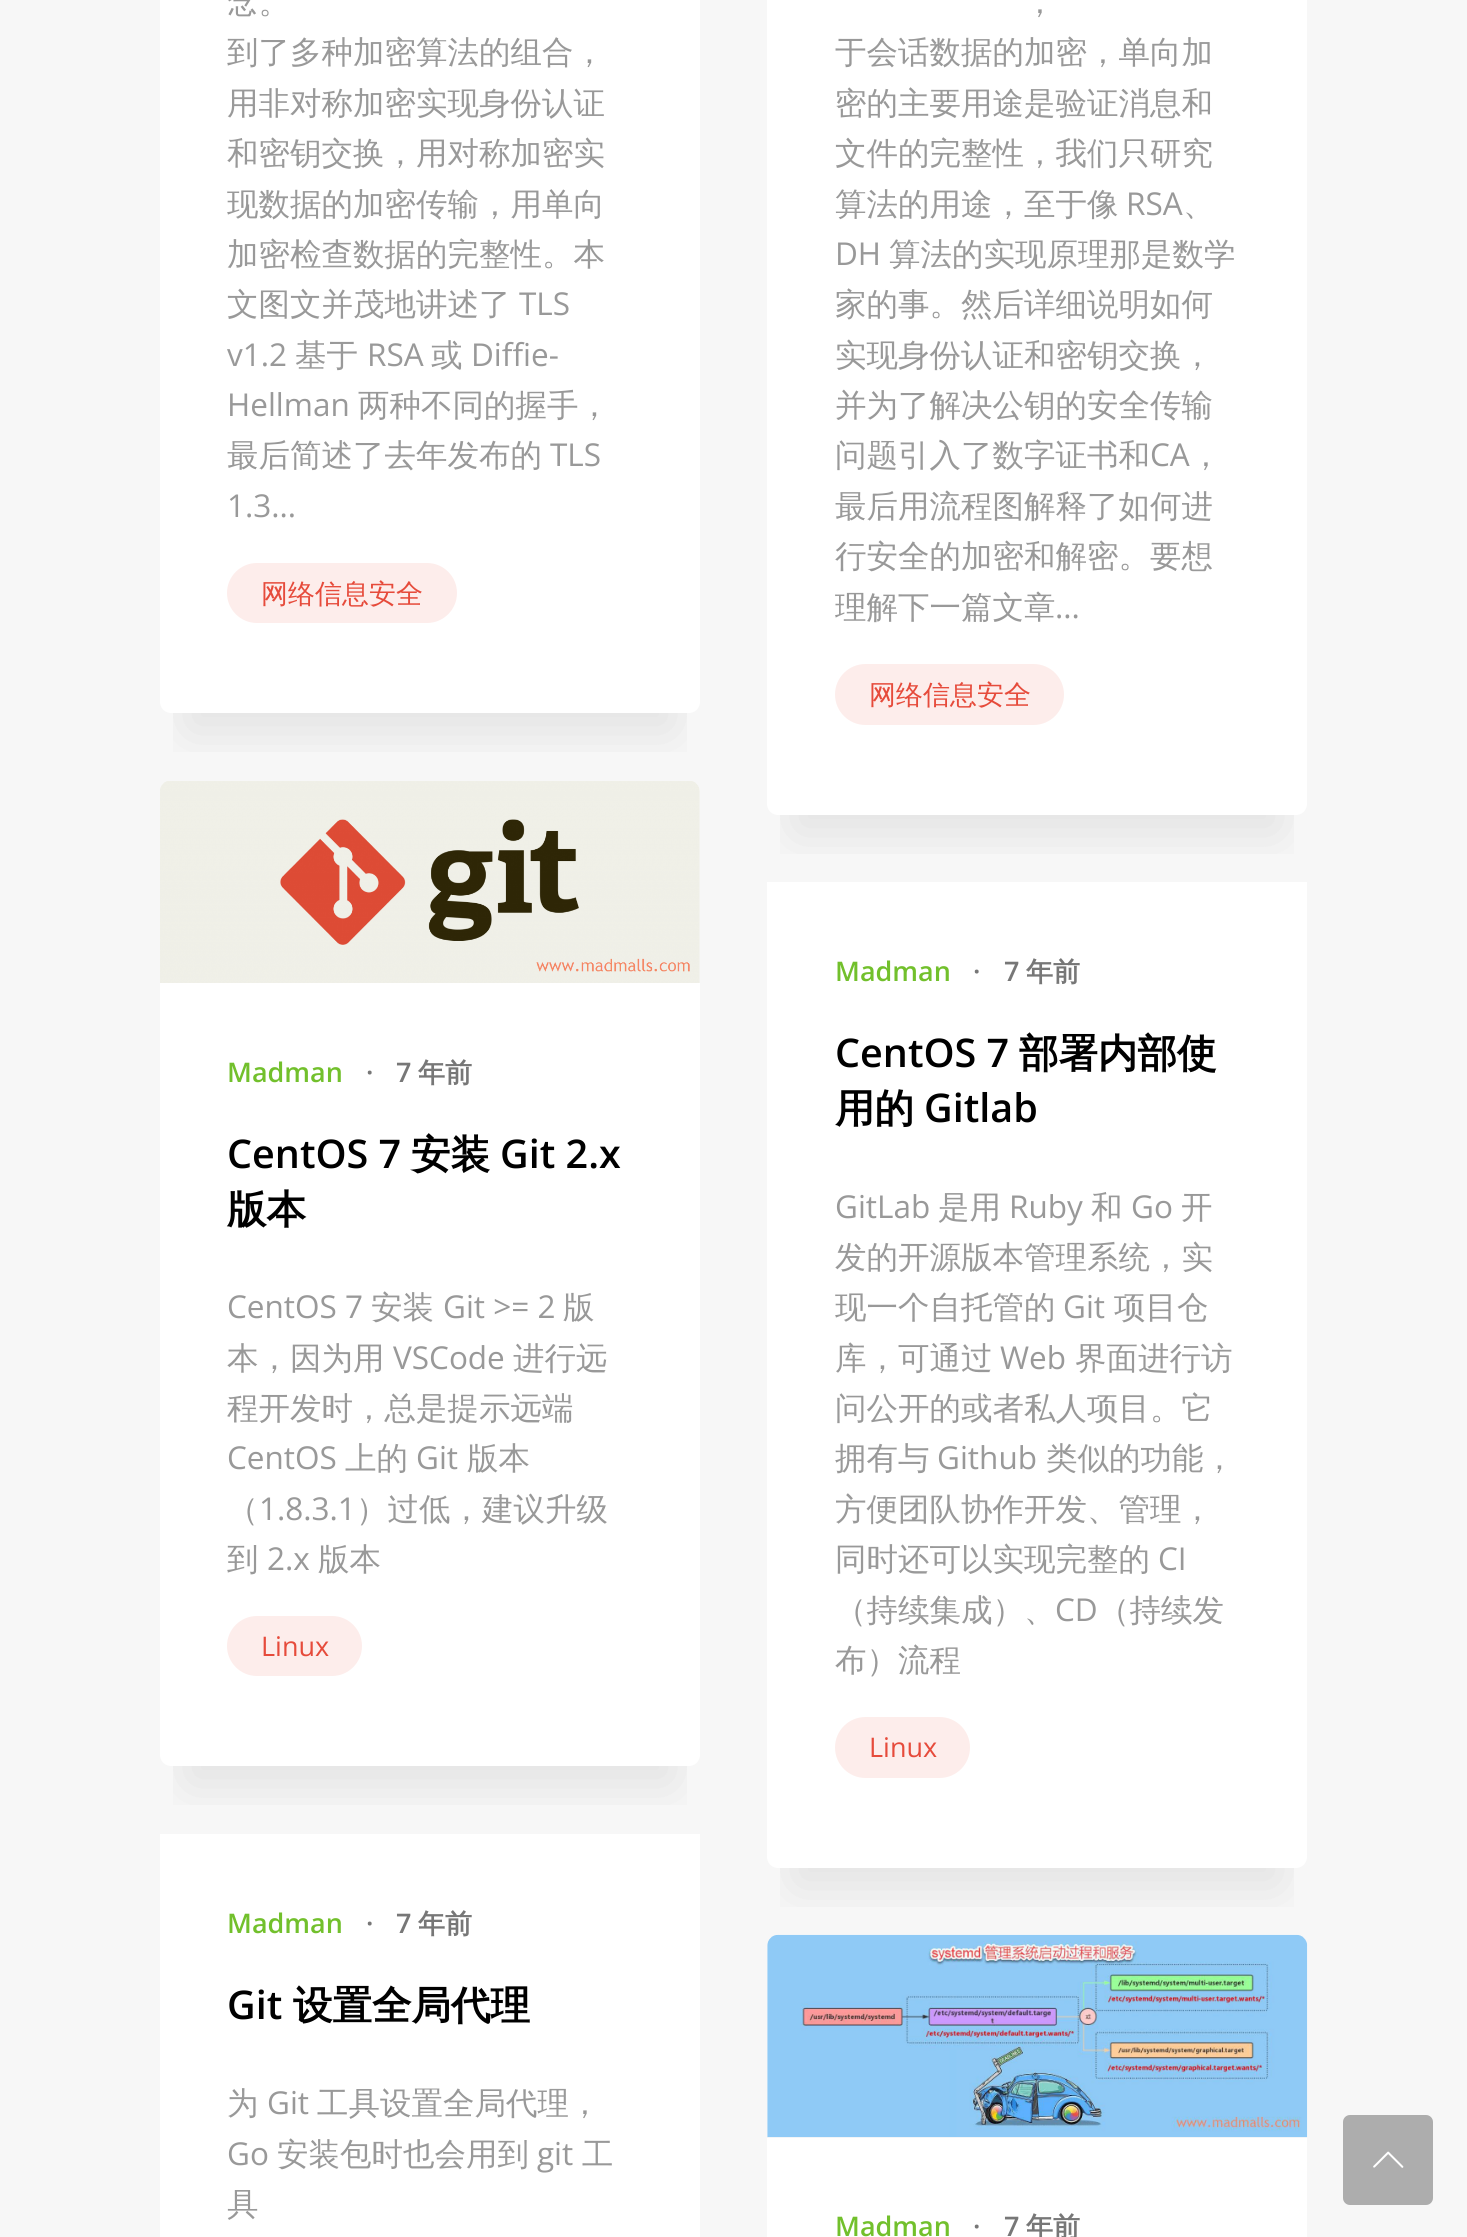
#include <cairo/cairo.h>
#include <math.h>
#include <stddef.h>

static cairo_t *cr;

static void use_color(int r, int g, int b) {
  cairo_set_source_rgb(cr, r / 255.0, g / 255.0, b / 255.0);
}

static void text(double x, double y, const char *s, const char *family, double size, int italic, int bold, int r, int g, int b) {
  cairo_select_font_face(cr, family, italic ? CAIRO_FONT_SLANT_ITALIC : CAIRO_FONT_SLANT_NORMAL,
    bold ? CAIRO_FONT_WEIGHT_BOLD : CAIRO_FONT_WEIGHT_NORMAL);
  cairo_set_font_size(cr, size);
  use_color(r, g, b);
  cairo_move_to(cr, x, y);
  cairo_show_text(cr, s);
}

static void box(double x, double y, double w, double h, int r, int g, int b) {
  use_color(r, g, b);
  cairo_rectangle(cr, x, y, w, h);
  cairo_fill(cr);
}

static void round_rect(double x, double y, double w, double h, double r) {
  cairo_new_sub_path(cr);
  cairo_arc(cr, x + w - r, y + h - r, r, 0, M_PI / 2);
  cairo_arc(cr, x + r, y + h - r, r, M_PI / 2, M_PI);
  cairo_arc(cr, x + r, y + r, r, M_PI, 1.5 * M_PI);
  cairo_arc(cr, x + w - r, y + r, r, 1.5 * M_PI, 2 * M_PI);
  cairo_close_path(cr);
}

static void shadow(double x, double y, double w, double h, double r, double blur, double alpha) {
  cairo_push_group_with_content(cr, CAIRO_CONTENT_ALPHA);
  cairo_set_operator(cr, CAIRO_OPERATOR_SOURCE);
  for (int i = 15; i >= -15 && fmin(w, h) + blur * i / 3 > 0; i -= 2) {
    double e = blur * i / 6;
    cairo_set_source_rgba(cr, 0, 0, 0, alpha * erfc((i - 1) / 8.5) / 2);
    round_rect(x - e, y - e, w + 2 * e, h + 2 * e, fmax(0, fmin(r + e + blur * .6, fmin(w, h) / 2 + e)));
    cairo_fill(cr);
  }
  cairo_pattern_t *soft = cairo_pop_group(cr);
  cairo_mask(cr, soft);
  cairo_pattern_destroy(soft);
}

static void picture(const char *path, double x, double y, double w, double h) {
  cairo_surface_t *image = cairo_image_surface_create_from_png(path);
  cairo_save(cr);
  cairo_set_source_surface(cr, image, x, y);
  cairo_rectangle(cr, x, y, w, h);
  cairo_fill(cr);
  cairo_restore(cr);
  cairo_surface_destroy(image);
}

static void draw(void) {
  use_color(247, 247, 247);
  cairo_paint(cr);
  cairo_save(cr);
  cairo_rectangle(cr, 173, 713, 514, 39);
  cairo_clip(cr);
  use_color(0, 0, 0);
  shadow(187, -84, 486, 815, 0, 28, 0.09);
  cairo_restore(cr);
  use_color(255, 255, 255);
  cairo_new_path(cr);
  cairo_move_to(cr, 160, -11);
  cairo_line_to(cr, 700, -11);
  cairo_line_to(cr, 700, 702);
  cairo_curve_to(cr, 700, 708, 695, 713, 689, 713);
  cairo_line_to(cr, 171, 713);
  cairo_curve_to(cr, 165, 713, 160, 708, 160, 702);
  cairo_close_path(cr);
  cairo_fill(cr);
  use_color(253, 237, 235);
  round_rect(227, 563, 230, 60, 30);
  cairo_fill(cr);
  cairo_save(cr);
  cairo_rectangle(cr, 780, 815, 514, 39);
  cairo_clip(cr);
  use_color(0, 0, 0);
  shadow(794, -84, 486, 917, 0, 28, 0.09);
  cairo_restore(cr);
  use_color(255, 255, 255);
  cairo_new_path(cr);
  cairo_move_to(cr, 767, -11);
  cairo_line_to(cr, 1307, -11);
  cairo_line_to(cr, 1307, 804);
  cairo_curve_to(cr, 1307, 810, 1302, 815, 1296, 815);
  cairo_line_to(cr, 778, 815);
  cairo_curve_to(cr, 772, 815, 767, 810, 767, 804);
  cairo_close_path(cr);
  cairo_fill(cr);
  use_color(253, 237, 235);
  round_rect(835, 664, 229, 61, 30.5);
  cairo_fill(cr);
  cairo_save(cr);
  cairo_rectangle(cr, 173, 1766, 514, 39);
  cairo_clip(cr);
  use_color(0, 0, 0);
  shadow(187, 853, 486, 931, 0, 28, 0.09);
  cairo_restore(cr);
  picture("img_01.png", 160, 781, 540, 202);
  use_color(255, 255, 255);
  cairo_new_path(cr);
  cairo_move_to(cr, 160, 983);
  cairo_line_to(cr, 700, 983);
  cairo_line_to(cr, 700, 1755);
  cairo_curve_to(cr, 700, 1761, 695, 1766, 689, 1766);
  cairo_line_to(cr, 171, 1766);
  cairo_curve_to(cr, 165, 1766, 160, 1761, 160, 1755);
  cairo_close_path(cr);
  cairo_fill(cr);
  use_color(253, 237, 235);
  round_rect(227, 1616, 135, 60, 30);
  cairo_fill(cr);
  cairo_save(cr);
  cairo_rectangle(cr, 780, 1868, 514, 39);
  cairo_clip(cr);
  use_color(0, 0, 0);
  shadow(794, 954, 486, 932, 0, 28, 0.09);
  cairo_restore(cr);
  use_color(255, 255, 255);
  cairo_new_path(cr);
  cairo_move_to(cr, 767, 882);
  cairo_line_to(cr, 1307, 882);
  cairo_line_to(cr, 1307, 1857);
  cairo_curve_to(cr, 1307, 1863, 1302, 1868, 1296, 1868);
  cairo_line_to(cr, 778, 1868);
  cairo_curve_to(cr, 772, 1868, 767, 1863, 767, 1857);
  cairo_close_path(cr);
  cairo_fill(cr);
  use_color(253, 237, 235);
  round_rect(835, 1717, 135, 61, 30.5);
  cairo_fill(cr);
  box(160, 1834, 540, 403, 255, 255, 255);
  picture("img_02.png", 767, 1934, 541, 204);
  box(767, 2138, 540, 99, 255, 255, 255);
  use_color(173, 173, 173);
  round_rect(1343, 2115, 90, 90, 7);
  cairo_fill(cr);
  picture("img_03.png", 1373, 2151, 31, 17);
  text(227, 13, "念。", "WenQuanYi Zen Hei Medium", 31.5, 0, 0, 153, 153, 153);
  text(227, 63, "到了多种加密算法的组合，", "WenQuanYi Zen Hei Medium", 31.5, 0, 0, 153, 153, 153);
  text(227, 114, "用非对称加密实现身份认证", "WenQuanYi Zen Hei Medium", 31.5, 0, 0, 153, 153, 153);
  text(227, 164, "和密钥交换，用对称加密实", "WenQuanYi Zen Hei Medium", 31.5, 0, 0, 153, 153, 153);
  text(227, 215, "现数据的加密传输，用单向", "WenQuanYi Zen Hei Medium", 31.5, 0, 0, 153, 153, 153);
  text(227, 265, "加密检查数据的完整性。本", "WenQuanYi Zen Hei Medium", 31.5, 0, 0, 153, 153, 153);
  text(227, 315, "文图文并茂地讲述了", "WenQuanYi Zen Hei Medium", 31.5, 0, 0, 153, 153, 153);
  text(519, 315, "TLS", "Open Sans", 31.5, 0, 0, 153, 153, 153);
  text(227, 366, "v1.2", "Open Sans", 31.5, 0, 0, 153, 153, 153);
  text(295, 366, "基于", "WenQuanYi Zen Hei Medium", 31.5, 0, 0, 153, 153, 153);
  text(367, 366, "RSA", "Open Sans", 31.5, 0, 0, 153, 153, 153);
  text(431, 366, "或", "WenQuanYi Zen Hei Medium", 31.5, 0, 0, 153, 153, 153);
  text(471, 366, "Diffie-", "Open Sans", 31.5, 0, 0, 153, 153, 153);
  text(227, 416, "Hellman", "Open Sans", 31.5, 0, 0, 153, 153, 153);
  text(358, 416, "两种不同的握手，", "WenQuanYi Zen Hei Medium", 31.5, 0, 0, 153, 153, 153);
  text(227, 466, "最后简述了去年发布的", "WenQuanYi Zen Hei Medium", 31.5, 0, 0, 153, 153, 153);
  text(550, 466, "TLS", "Open Sans", 31.5, 0, 0, 153, 153, 153);
  text(227, 517, "1.3...", "Open Sans", 31.5, 0, 0, 153, 153, 153);
  text(261, 603, "网络信息安全", "WenQuanYi Zen Hei Medium", 27, 0, 0, 230, 75, 59);
  text(1024, 13, "，", "WenQuanYi Zen Hei Medium", 31.5, 0, 0, 153, 153, 153);
  text(835, 63, "于会话数据的加密，单向加", "WenQuanYi Zen Hei Medium", 31.5, 0, 0, 153, 153, 153);
  text(835, 114, "密的主要用途是验证消息和", "WenQuanYi Zen Hei Medium", 31.5, 0, 0, 153, 153, 153);
  text(835, 164, "文件的完整性，我们只研究", "WenQuanYi Zen Hei Medium", 31.5, 0, 0, 153, 153, 153);
  text(835, 215, "算法的用途，至于像", "WenQuanYi Zen Hei Medium", 31.5, 0, 0, 153, 153, 153);
  text(1126, 215, "RSA", "Open Sans", 31.5, 0, 0, 153, 153, 153);
  text(1183, 215, "、", "WenQuanYi Zen Hei Medium", 31.5, 0, 0, 153, 153, 153);
  text(835, 265, "DH", "Open Sans", 31.5, 0, 0, 153, 153, 153);
  text(889, 265, "算法的实现原理那是数学", "WenQuanYi Zen Hei Medium", 31.5, 0, 0, 153, 153, 153);
  text(835, 315, "家的事。然后详细说明如何", "WenQuanYi Zen Hei Medium", 31.5, 0, 0, 153, 153, 153);
  text(835, 366, "实现身份认证和密钥交换，", "WenQuanYi Zen Hei Medium", 31.5, 0, 0, 153, 153, 153);
  text(835, 416, "并为了解决公钥的安全传输", "WenQuanYi Zen Hei Medium", 31.5, 0, 0, 153, 153, 153);
  text(835, 466, "问题引入了数字证书和", "WenQuanYi Zen Hei Medium", 31.5, 0, 0, 153, 153, 153);
  text(1150, 466, "CA", "Open Sans", 31.5, 0, 0, 153, 153, 153);
  text(1190, 466, "，", "WenQuanYi Zen Hei Medium", 31.5, 0, 0, 153, 153, 153);
  text(835, 517, "最后用流程图解释了如何进", "WenQuanYi Zen Hei Medium", 31.5, 0, 0, 153, 153, 153);
  text(835, 567, "行安全的加密和解密。要想", "WenQuanYi Zen Hei Medium", 31.5, 0, 0, 153, 153, 153);
  text(835, 618, "理解下一篇文章", "WenQuanYi Zen Hei Medium", 31.5, 0, 0, 153, 153, 153);
  text(1055, 618, "...", "Open Sans", 31.5, 0, 0, 153, 153, 153);
  text(869, 704, "网络信息安全", "WenQuanYi Zen Hei Medium", 27, 0, 0, 230, 75, 59);
  text(227, 1082, "Madman", "Open Sans SemiBold", 27, 0, 0, 114, 192, 44);
  text(366, 1082, "·", "Open Sans SemiBold", 27, 0, 0, 119, 119, 119);
  text(396, 1082, "7", "Open Sans SemiBold", 27, 0, 0, 119, 119, 119);
  text(418, 1082, "年前", "WenQuanYi Zen Hei", 27, 0, 1, 119, 119, 119);
  text(227, 1168, "CentOS 7", "Open Sans SemiBold", 39.5, 0, 0, 0, 0, 0);
  text(411, 1168, "安装", "WenQuanYi Zen Hei", 39.5, 0, 1, 0, 0, 0);
  text(500, 1168, "Git 2.x", "Open Sans SemiBold", 39.5, 0, 0, 0, 0, 0);
  text(227, 1223, "版本", "WenQuanYi Zen Hei", 39.5, 0, 1, 0, 0, 0);
  text(227, 1318, "CentOS 7", "Open Sans", 31.5, 0, 0, 153, 153, 153);
  text(371, 1318, "安装", "WenQuanYi Zen Hei Medium", 31.5, 0, 0, 153, 153, 153);
  text(443, 1318, "Git >= 2", "Open Sans", 31.5, 0, 0, 153, 153, 153);
  text(563, 1318, "版", "WenQuanYi Zen Hei Medium", 31.5, 0, 0, 153, 153, 153);
  text(227, 1369, "本，因为用", "WenQuanYi Zen Hei Medium", 31.5, 0, 0, 153, 153, 153);
  text(393, 1369, "VSCode", "Open Sans", 31.5, 0, 0, 153, 153, 153);
  text(513, 1369, "进行远", "WenQuanYi Zen Hei Medium", 31.5, 0, 0, 153, 153, 153);
  text(227, 1419, "程开发时，总是提示远端", "WenQuanYi Zen Hei Medium", 31.5, 0, 0, 153, 153, 153);
  text(227, 1469, "CentOS", "Open Sans", 31.5, 0, 0, 153, 153, 153);
  text(345, 1469, "上的", "WenQuanYi Zen Hei Medium", 31.5, 0, 0, 153, 153, 153);
  text(416, 1469, "Git", "Open Sans", 31.5, 0, 0, 153, 153, 153);
  text(467, 1469, "版本", "WenQuanYi Zen Hei Medium", 31.5, 0, 0, 153, 153, 153);
  text(227, 1520, "（", "WenQuanYi Zen Hei Medium", 31.5, 0, 0, 153, 153, 153);
  text(259, 1520, "1.8.3.1", "Open Sans", 31.5, 0, 0, 153, 153, 153);
  text(356, 1520, "）过低，建议升级", "WenQuanYi Zen Hei Medium", 31.5, 0, 0, 153, 153, 153);
  text(227, 1570, "到", "WenQuanYi Zen Hei Medium", 31.5, 0, 0, 153, 153, 153);
  text(267, 1570, "2.x", "Open Sans", 31.5, 0, 0, 153, 153, 153);
  text(318, 1570, "版本", "WenQuanYi Zen Hei Medium", 31.5, 0, 0, 153, 153, 153);
  text(261, 1656, "Linux", "Open Sans", 27, 0, 0, 230, 75, 59);
  text(835, 981, "Madman", "Open Sans SemiBold", 27, 0, 0, 114, 192, 44);
  text(973, 981, "·", "Open Sans SemiBold", 27, 0, 0, 119, 119, 119);
  text(1004, 981, "7", "Open Sans SemiBold", 27, 0, 0, 119, 119, 119);
  text(1026, 981, "年前", "WenQuanYi Zen Hei", 27, 0, 1, 119, 119, 119);
  text(835, 1067, "CentOS 7", "Open Sans SemiBold", 39.5, 0, 0, 0, 0, 0);
  text(1019, 1067, "部署内部使", "WenQuanYi Zen Hei", 39.5, 0, 1, 0, 0, 0);
  text(835, 1122, "用的", "WenQuanYi Zen Hei", 39.5, 0, 1, 0, 0, 0);
  text(924, 1122, "Gitlab", "Open Sans SemiBold", 39.5, 0, 0, 0, 0, 0);
  text(835, 1218, "GitLab", "Open Sans", 31.5, 0, 0, 153, 153, 153);
  text(938, 1218, "是用", "WenQuanYi Zen Hei Medium", 31.5, 0, 0, 153, 153, 153);
  text(1009, 1218, "Ruby", "Open Sans", 31.5, 0, 0, 153, 153, 153);
  text(1091, 1218, "和", "WenQuanYi Zen Hei Medium", 31.5, 0, 0, 153, 153, 153);
  text(1131, 1218, "Go", "Open Sans", 31.5, 0, 0, 153, 153, 153);
  text(1181, 1218, "开", "WenQuanYi Zen Hei Medium", 31.5, 0, 0, 153, 153, 153);
  text(835, 1268, "发的开源版本管理系统，实", "WenQuanYi Zen Hei Medium", 31.5, 0, 0, 153, 153, 153);
  text(835, 1318, "现一个自托管的", "WenQuanYi Zen Hei Medium", 31.5, 0, 0, 153, 153, 153);
  text(1063, 1318, "Git", "Open Sans", 31.5, 0, 0, 153, 153, 153);
  text(1114, 1318, "项目仓", "WenQuanYi Zen Hei Medium", 31.5, 0, 0, 153, 153, 153);
  text(835, 1369, "库，可通过", "WenQuanYi Zen Hei Medium", 31.5, 0, 0, 153, 153, 153);
  text(1000, 1369, "Web", "Open Sans", 31.5, 0, 0, 153, 153, 153);
  text(1075, 1369, "界面进行访", "WenQuanYi Zen Hei Medium", 31.5, 0, 0, 153, 153, 153);
  text(835, 1419, "问公开的或者私人项目。它", "WenQuanYi Zen Hei Medium", 31.5, 0, 0, 153, 153, 153);
  text(835, 1469, "拥有与", "WenQuanYi Zen Hei Medium", 31.5, 0, 0, 153, 153, 153);
  text(937, 1469, "Github", "Open Sans", 31.5, 0, 0, 153, 153, 153);
  text(1046, 1469, "类似的功能，", "WenQuanYi Zen Hei Medium", 31.5, 0, 0, 153, 153, 153);
  text(835, 1520, "方便团队协作开发、管理，", "WenQuanYi Zen Hei Medium", 31.5, 0, 0, 153, 153, 153);
  text(835, 1570, "同时还可以实现完整的", "WenQuanYi Zen Hei Medium", 31.5, 0, 0, 153, 153, 153);
  text(1158, 1570, "CI", "Open Sans", 31.5, 0, 0, 153, 153, 153);
  text(835, 1621, "（持续集成）、", "WenQuanYi Zen Hei Medium", 31.5, 0, 0, 153, 153, 153);
  text(1055, 1621, "CD", "Open Sans", 31.5, 0, 0, 153, 153, 153);
  text(1098, 1621, "（持续发", "WenQuanYi Zen Hei Medium", 31.5, 0, 0, 153, 153, 153);
  text(835, 1671, "布）流程", "WenQuanYi Zen Hei Medium", 31.5, 0, 0, 153, 153, 153);
  text(869, 1757, "Linux", "Open Sans", 27, 0, 0, 230, 75, 59);
  text(227, 1933, "Madman", "Open Sans SemiBold", 27, 0, 0, 114, 192, 44);
  text(366, 1933, "·", "Open Sans SemiBold", 27, 0, 0, 119, 119, 119);
  text(396, 1933, "7", "Open Sans SemiBold", 27, 0, 0, 119, 119, 119);
  text(418, 1933, "年前", "WenQuanYi Zen Hei", 27, 0, 1, 119, 119, 119);
  text(227, 2019, "Git", "Open Sans SemiBold", 39.5, 0, 0, 0, 0, 0);
  text(293, 2019, "设置全局代理", "WenQuanYi Zen Hei", 39.5, 0, 1, 0, 0, 0);
  text(227, 2114, "为", "WenQuanYi Zen Hei Medium", 31.5, 0, 0, 153, 153, 153);
  text(267, 2114, "Git", "Open Sans", 31.5, 0, 0, 153, 153, 153);
  text(317, 2114, "工具设置全局代理，", "WenQuanYi Zen Hei Medium", 31.5, 0, 0, 153, 153, 153);
  text(227, 2165, "Go", "Open Sans", 31.5, 0, 0, 153, 153, 153);
  text(277, 2165, "安装包时也会用到", "WenQuanYi Zen Hei Medium", 31.5, 0, 0, 153, 153, 153);
  text(537, 2165, "git", "Open Sans", 31.5, 0, 0, 153, 153, 153);
  text(582, 2165, "工", "WenQuanYi Zen Hei Medium", 31.5, 0, 0, 153, 153, 153);
  text(227, 2215, "具", "WenQuanYi Zen Hei Medium", 31.5, 0, 0, 153, 153, 153);
  text(835, 2236, "Madman", "Open Sans SemiBold", 27, 0, 0, 114, 192, 44);
  text(973, 2236, "·", "Open Sans SemiBold", 27, 0, 0, 119, 119, 119);
  text(1004, 2236, "7", "Open Sans SemiBold", 27, 0, 0, 119, 119, 119);
  text(1026, 2236, "年前", "WenQuanYi Zen Hei", 27, 0, 1, 119, 119, 119);
}

int main(void) {
  cairo_surface_t *surface = cairo_image_surface_create(CAIRO_FORMAT_RGB24, 1467, 2237);
  cr = cairo_create(surface);
  cairo_font_options_t *options = cairo_font_options_create();
  cairo_font_options_set_hint_metrics(options, CAIRO_HINT_METRICS_OFF);
  cairo_font_options_set_hint_style(options, CAIRO_HINT_STYLE_NONE);
  cairo_set_font_options(cr, options);
  cairo_set_miter_limit(cr, 4);
  draw();
  cairo_surface_write_to_png(surface, "out.png");
  cairo_font_options_destroy(options);
  cairo_destroy(cr);
  cairo_surface_destroy(surface);
  return 0;
}
